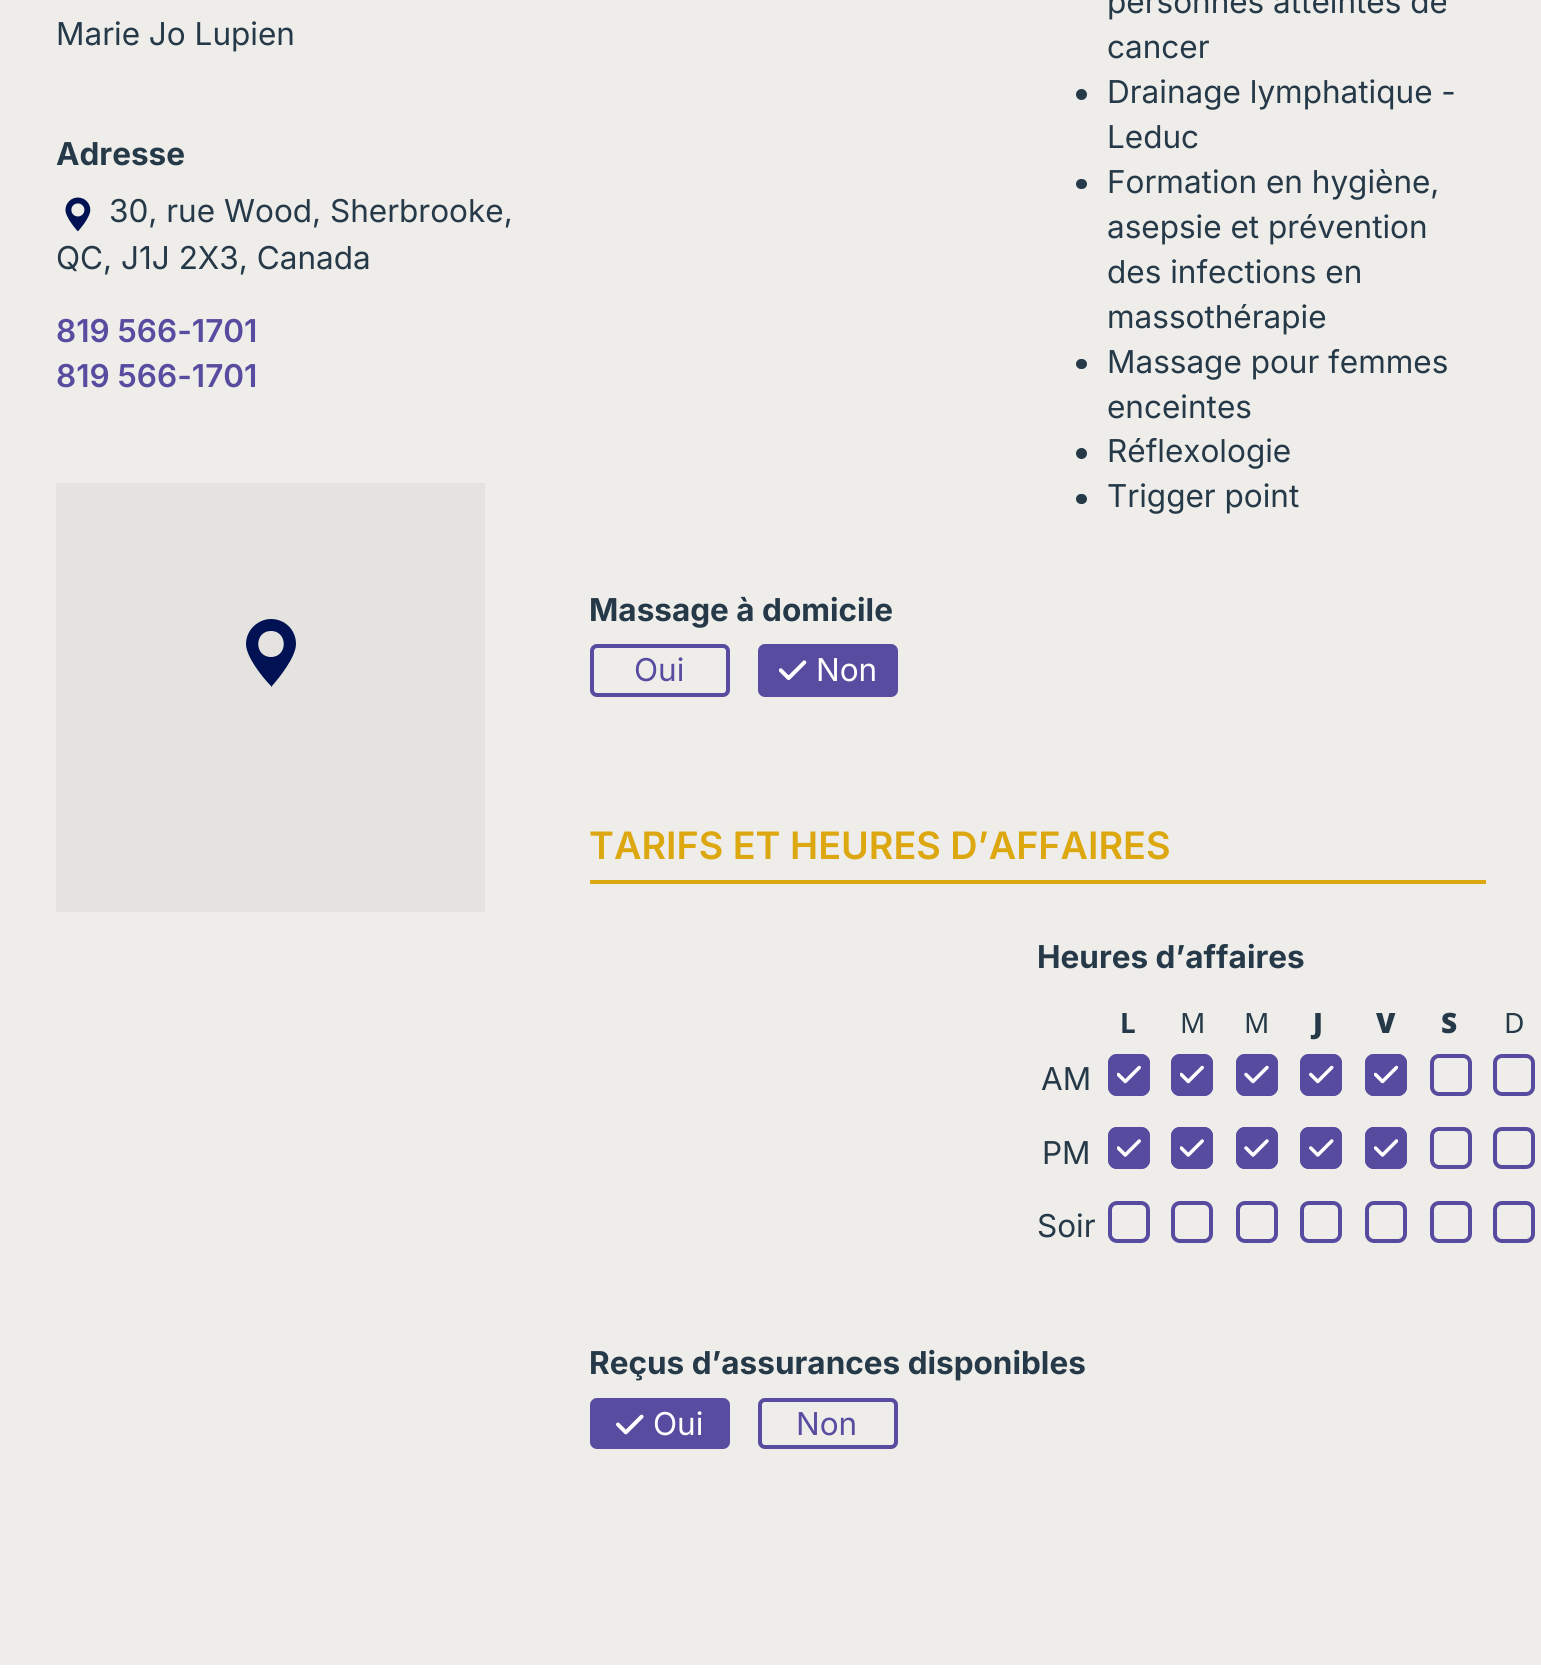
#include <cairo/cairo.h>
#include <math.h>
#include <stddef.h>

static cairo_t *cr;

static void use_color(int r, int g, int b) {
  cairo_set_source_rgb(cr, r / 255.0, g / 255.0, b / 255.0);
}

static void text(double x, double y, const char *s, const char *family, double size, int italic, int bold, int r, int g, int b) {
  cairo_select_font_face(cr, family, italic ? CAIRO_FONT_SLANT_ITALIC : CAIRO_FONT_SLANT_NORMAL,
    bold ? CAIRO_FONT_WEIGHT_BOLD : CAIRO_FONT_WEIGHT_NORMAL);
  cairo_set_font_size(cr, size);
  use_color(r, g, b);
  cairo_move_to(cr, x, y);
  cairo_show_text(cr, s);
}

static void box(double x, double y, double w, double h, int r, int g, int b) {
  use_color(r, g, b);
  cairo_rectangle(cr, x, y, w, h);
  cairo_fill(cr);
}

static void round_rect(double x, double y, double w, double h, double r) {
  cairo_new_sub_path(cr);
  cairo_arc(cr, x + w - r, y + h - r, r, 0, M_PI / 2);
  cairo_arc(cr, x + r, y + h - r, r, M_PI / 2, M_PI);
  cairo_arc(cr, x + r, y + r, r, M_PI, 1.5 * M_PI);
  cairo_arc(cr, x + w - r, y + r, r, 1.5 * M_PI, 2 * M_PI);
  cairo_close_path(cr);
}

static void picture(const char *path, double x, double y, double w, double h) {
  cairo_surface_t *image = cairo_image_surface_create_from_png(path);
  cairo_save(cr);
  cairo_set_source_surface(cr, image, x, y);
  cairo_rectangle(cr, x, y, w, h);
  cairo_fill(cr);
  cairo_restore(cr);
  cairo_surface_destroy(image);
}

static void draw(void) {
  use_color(238, 237, 233);
  cairo_paint(cr);
  picture("img_01.png", 65, 197, 26, 35);
  box(56, 483, 429, 429, 229, 227, 223);
  use_color(0, 18, 84);
  cairo_new_path(cr);
  cairo_move_to(cr, 271, 619);
  cairo_curve_to(cr, 258, 619, 246, 630, 246, 644);
  cairo_curve_to(cr, 246, 657, 263, 678, 271, 686);
  cairo_curve_to(cr, 271, 687, 272, 687, 272, 686);
  cairo_curve_to(cr, 279, 678, 296, 657, 296, 644);
  cairo_curve_to(cr, 296, 630, 285, 619, 271, 619);
  cairo_close_path(cr);
  cairo_move_to(cr, 271, 657);
  cairo_curve_to(cr, 254, 657, 254, 631, 271, 631);
  cairo_curve_to(cr, 288, 631, 288, 657, 271, 657);
  cairo_close_path(cr);
  cairo_fill(cr);
  use_color(37, 57, 72);
  cairo_arc(cr, 1081.5, 94.5, 5.5, 0, 2 * M_PI);
  cairo_fill(cr);
  round_rect(1076, 179, 11, 10, 5);
  cairo_fill(cr);
  round_rect(1076, 359, 11, 10, 5);
  cairo_fill(cr);
  cairo_arc(cr, 1081.5, 453.5, 5.5, 0, 2 * M_PI);
  cairo_fill(cr);
  round_rect(1076, 494, 11, 10, 5);
  cairo_fill(cr);
  round_rect(592, 646, 136, 49, 5);
  use_color(88, 76, 160);
  cairo_set_line_width(cr, 4);
  cairo_stroke(cr);
  round_rect(760, 646, 136, 49, 5);
  cairo_fill_preserve(cr);
  cairo_stroke(cr);
  picture("img_02.png", 779, 660, 28, 21);
  box(590, 880, 896, 4, 220, 167, 15);
  use_color(87, 75, 159);
  round_rect(1108, 1054, 42, 42, 9);
  cairo_fill(cr);
  picture("img_03.png", 1117, 1065, 24, 19);
  round_rect(1110, 1056, 38, 38, 7);
  cairo_stroke(cr);
  round_rect(1171, 1054, 42, 42, 9);
  cairo_fill(cr);
  picture("img_03.png", 1180, 1065, 24, 19);
  round_rect(1173, 1056, 38, 38, 7);
  cairo_stroke(cr);
  round_rect(1236, 1054, 42, 42, 9);
  cairo_fill(cr);
  picture("img_04.png", 1244, 1065, 25, 19);
  round_rect(1238, 1056, 38, 38, 7);
  cairo_stroke(cr);
  round_rect(1300, 1054, 42, 42, 9);
  cairo_fill(cr);
  picture("img_05.png", 1309, 1065, 25, 19);
  round_rect(1302, 1056, 38, 38, 7);
  cairo_stroke(cr);
  round_rect(1365, 1054, 42, 42, 9);
  cairo_fill(cr);
  picture("img_06.png", 1374, 1065, 24, 19);
  round_rect(1367, 1056, 38, 38, 7);
  cairo_stroke(cr);
  round_rect(1432, 1056, 38, 38, 7);
  cairo_stroke(cr);
  round_rect(1495, 1056, 38, 38, 7);
  cairo_stroke(cr);
  round_rect(1108, 1127, 42, 42, 9);
  cairo_fill(cr);
  picture("img_07.png", 1117, 1139, 24, 18);
  round_rect(1110, 1129, 38, 38, 7);
  cairo_stroke(cr);
  round_rect(1171, 1127, 42, 42, 9);
  cairo_fill(cr);
  picture("img_07.png", 1180, 1139, 24, 18);
  round_rect(1173, 1129, 38, 38, 7);
  cairo_stroke(cr);
  round_rect(1236, 1127, 42, 42, 9);
  cairo_fill(cr);
  picture("img_08.png", 1244, 1139, 25, 18);
  round_rect(1238, 1129, 38, 38, 7);
  cairo_stroke(cr);
  round_rect(1300, 1127, 42, 42, 9);
  cairo_fill(cr);
  picture("img_09.png", 1309, 1139, 25, 18);
  round_rect(1302, 1129, 38, 38, 7);
  cairo_stroke(cr);
  round_rect(1365, 1127, 42, 42, 9);
  cairo_fill(cr);
  picture("img_10.png", 1374, 1139, 24, 18);
  round_rect(1367, 1129, 38, 38, 7);
  cairo_stroke(cr);
  round_rect(1432, 1129, 38, 38, 7);
  cairo_stroke(cr);
  round_rect(1495, 1129, 38, 38, 7);
  cairo_stroke(cr);
  round_rect(1110, 1203, 38, 38, 7);
  cairo_stroke(cr);
  round_rect(1173, 1203, 38, 38, 7);
  cairo_stroke(cr);
  round_rect(1238, 1203, 38, 38, 7);
  cairo_stroke(cr);
  round_rect(1302, 1203, 38, 38, 7);
  cairo_stroke(cr);
  round_rect(1367, 1203, 38, 38, 7);
  cairo_stroke(cr);
  round_rect(1432, 1203, 38, 38, 7);
  cairo_stroke(cr);
  round_rect(1495, 1203, 38, 38, 7);
  cairo_stroke(cr);
  use_color(88, 76, 160);
  round_rect(592, 1400, 136, 47, 5);
  cairo_fill_preserve(cr);
  cairo_stroke(cr);
  picture("img_11.png", 616, 1414, 28, 21);
  round_rect(760, 1400, 136, 47, 5);
  cairo_stroke(cr);
  box(0, 1665, 1541, 14, 255, 255, 255);
  text(56, 45, "Marie Jo Lupien", "Inter", 31.5, 0, 0, 37, 57, 72);
  text(56, 165, "Adresse", "Inter", 31.5, 0, 1, 37, 57, 72);
  text(109, 222, "30, rue Wood, Sherbrooke,", "Inter", 31.5, 0, 0, 37, 57, 72);
  text(56, 269, "QC, J1J 2X3, Canada", "Inter", 31.5, 0, 0, 37, 57, 72);
  text(56, 342, "819 566-1701", "Inter SemiBold", 31.5, 0, 0, 88, 76, 160);
  text(56, 387, "819 566-1701", "Inter SemiBold", 31.5, 0, 0, 88, 76, 160);
  text(1107, 13, "personnes atteintes de", "Inter", 31.5, 0, 0, 37, 57, 72);
  text(1107, 58, "cancer", "Inter", 31.5, 0, 0, 37, 57, 72);
  text(1107, 103, "Drainage lymphatique -", "Inter", 31.5, 0, 0, 37, 57, 72);
  text(1107, 148, "Leduc", "Inter", 31.5, 0, 0, 37, 57, 72);
  text(1107, 193, "Formation en hygiène,", "Inter", 31.5, 0, 0, 37, 57, 72);
  text(1107, 238, "asepsie et prévention", "Inter", 31.5, 0, 0, 37, 57, 72);
  text(1107, 283, "des infections en", "Inter", 31.5, 0, 0, 37, 57, 72);
  text(1107, 328, "massothérapie", "Inter", 31.5, 0, 0, 37, 57, 72);
  text(1107, 373, "Massage pour femmes", "Inter", 31.5, 0, 0, 37, 57, 72);
  text(1107, 418, "enceintes", "Inter", 31.5, 0, 0, 37, 57, 72);
  text(1107, 462, "Réflexologie", "Inter", 31.5, 0, 0, 37, 57, 72);
  text(1107, 507, "Trigger point", "Inter", 31.5, 0, 0, 37, 57, 72);
  text(589, 621, "Massage à domicile", "Inter", 31.5, 0, 1, 37, 57, 72);
  text(634, 681, "Oui", "Inter", 31.5, 0, 0, 88, 76, 160);
  text(816, 681, "Non", "Inter", 31.5, 0, 0, 255, 255, 255);
  text(589, 859, "TARIFS ET HEURES D’AFFAIRES", "Inter SemiBold", 37.75, 0, 0, 220, 167, 15);
  text(1037, 968, "Heures d’affaires", "Inter", 31.5, 0, 1, 37, 57, 72);
  text(1120, 1033, "L", "Noto Sans", 28, 0, 1, 37, 57, 72);
  text(1180, 1033, "M", "Noto Sans", 28, 0, 0, 37, 57, 72);
  text(1244, 1033, "M", "Noto Sans", 28, 0, 0, 37, 57, 72);
  text(1313, 1033, "J", "Noto Sans Black", 28, 0, 0, 37, 57, 72);
  text(1376, 1033, "V", "Noto Sans Black", 28, 0, 0, 37, 57, 72);
  text(1441, 1033, "S", "Noto Sans Black", 28, 0, 0, 37, 57, 72);
  text(1504, 1033, "D", "Noto Sans", 28, 0, 0, 37, 57, 72);
  text(1041, 1090, "AM", "Inter", 31.5, 0, 0, 37, 57, 72);
  text(1042, 1164, "PM", "Inter", 31.5, 0, 0, 37, 57, 72);
  text(1037, 1237, "Soir", "Inter", 31.5, 0, 0, 37, 57, 72);
  text(589, 1374, "Reçus d’assurances disponibles", "Inter", 31.5, 0, 1, 37, 57, 72);
  text(653, 1435, "Oui", "Inter", 31.5, 0, 0, 255, 255, 255);
  text(796, 1435, "Non", "Inter", 31.5, 0, 0, 88, 76, 160);
}

int main(void) {
  cairo_surface_t *surface = cairo_image_surface_create(CAIRO_FORMAT_RGB24, 1541, 1679);
  cr = cairo_create(surface);
  cairo_font_options_t *options = cairo_font_options_create();
  cairo_font_options_set_hint_metrics(options, CAIRO_HINT_METRICS_OFF);
  cairo_font_options_set_hint_style(options, CAIRO_HINT_STYLE_NONE);
  cairo_set_font_options(cr, options);
  cairo_set_miter_limit(cr, 4);
  draw();
  cairo_surface_write_to_png(surface, "out.png");
  cairo_font_options_destroy(options);
  cairo_destroy(cr);
  cairo_surface_destroy(surface);
  return 0;
}
